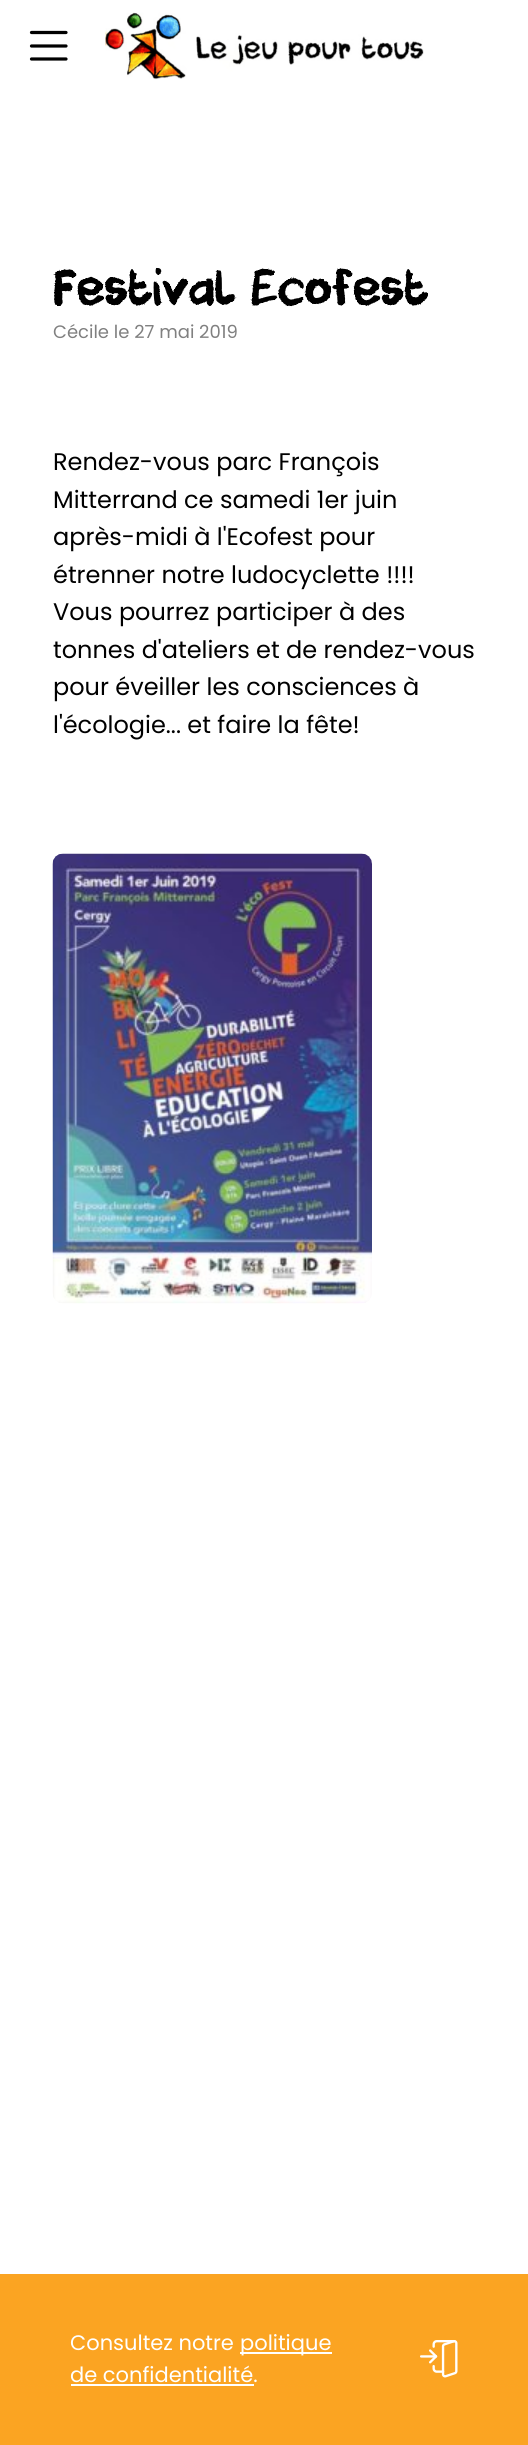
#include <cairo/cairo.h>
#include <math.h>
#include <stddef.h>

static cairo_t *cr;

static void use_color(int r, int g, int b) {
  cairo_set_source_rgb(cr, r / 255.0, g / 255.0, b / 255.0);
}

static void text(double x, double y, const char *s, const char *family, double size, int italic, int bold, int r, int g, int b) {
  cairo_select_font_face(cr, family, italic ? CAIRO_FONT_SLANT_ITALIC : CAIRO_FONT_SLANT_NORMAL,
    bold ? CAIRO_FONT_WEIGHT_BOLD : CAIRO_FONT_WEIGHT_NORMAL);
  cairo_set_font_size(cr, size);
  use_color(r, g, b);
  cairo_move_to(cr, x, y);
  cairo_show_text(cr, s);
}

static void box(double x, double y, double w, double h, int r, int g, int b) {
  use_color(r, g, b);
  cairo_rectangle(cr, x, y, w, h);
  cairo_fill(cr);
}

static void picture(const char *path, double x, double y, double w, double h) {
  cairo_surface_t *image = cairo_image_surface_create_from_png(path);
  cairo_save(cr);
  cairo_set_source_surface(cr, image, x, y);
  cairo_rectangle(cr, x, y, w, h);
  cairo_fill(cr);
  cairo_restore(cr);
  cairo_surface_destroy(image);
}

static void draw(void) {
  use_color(255, 255, 255);
  cairo_paint(cr);
  cairo_new_path(cr);
  cairo_move_to(cr, 31.5, 59);
  cairo_line_to(cr, 66, 59);
  cairo_move_to(cr, 31.5, 32.5);
  cairo_line_to(cr, 66, 32.5);
  cairo_move_to(cr, 31.5, 46);
  cairo_line_to(cr, 66, 46);
  use_color(0, 0, 0);
  cairo_set_line_width(cr, 3.2);
  cairo_set_line_cap(cr, CAIRO_LINE_CAP_ROUND);
  cairo_stroke(cr);
  picture("img_01.png", 105, 12, 319, 68);
  picture("img_02.png", 52, 853, 320, 451);
  box(0, 2274, 528, 171, 251, 164, 34);
  box(240, 2352, 92, 2, 255, 255, 255);
  box(71, 2384, 183, 2, 255, 255, 255);
  picture("img_03.png", 420, 2340, 38, 38);
  text(53, 305, "Festival Ecofest", "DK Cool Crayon", 45, 0, 1, 0, 0, 0);
  text(53, 338, "Cécile le 27 mai 2019", "Poppins", 18, 0, 0, 128, 128, 128);
  text(53, 470, "Rendez-vous parc François", "Poppins", 24, 0, 0, 0, 0, 0);
  text(53, 508, "Mitterrand ce samedi 1er juin", "Poppins", 24, 0, 0, 0, 0, 0);
  text(53, 545, "après-midi à l'Ecofest pour", "Poppins", 24, 0, 0, 0, 0, 0);
  text(53, 583, "étrenner notre ludocyclette !!!!", "Poppins", 24, 0, 0, 0, 0, 0);
  text(53, 620, "Vous pourrez participer à des", "Poppins", 24, 0, 0, 0, 0, 0);
  text(53, 658, "tonnes d'ateliers et de rendez-vous", "Poppins", 24, 0, 0, 0, 0, 0);
  text(53, 695, "pour éveiller les consciences à", "Poppins", 24, 0, 0, 0, 0, 0);
  text(53, 733, "l'écologie... et faire la fête!", "Poppins", 24, 0, 0, 0, 0, 0);
  text(70, 2350, "Consultez notre", "Poppins", 21, 0, 0, 255, 255, 255);
  text(240, 2350, "politique", "Poppins", 21, 0, 0, 255, 255, 255);
  text(70, 2382, "de confidentialité.", "Poppins", 21, 0, 0, 255, 255, 255);
}

int main(void) {
  cairo_surface_t *surface = cairo_image_surface_create(CAIRO_FORMAT_RGB24, 528, 2445);
  cr = cairo_create(surface);
  cairo_font_options_t *options = cairo_font_options_create();
  cairo_font_options_set_hint_metrics(options, CAIRO_HINT_METRICS_OFF);
  cairo_font_options_set_hint_style(options, CAIRO_HINT_STYLE_NONE);
  cairo_set_font_options(cr, options);
  cairo_set_miter_limit(cr, 4);
  draw();
  cairo_surface_write_to_png(surface, "out.png");
  cairo_font_options_destroy(options);
  cairo_destroy(cr);
  cairo_surface_destroy(surface);
  return 0;
}
